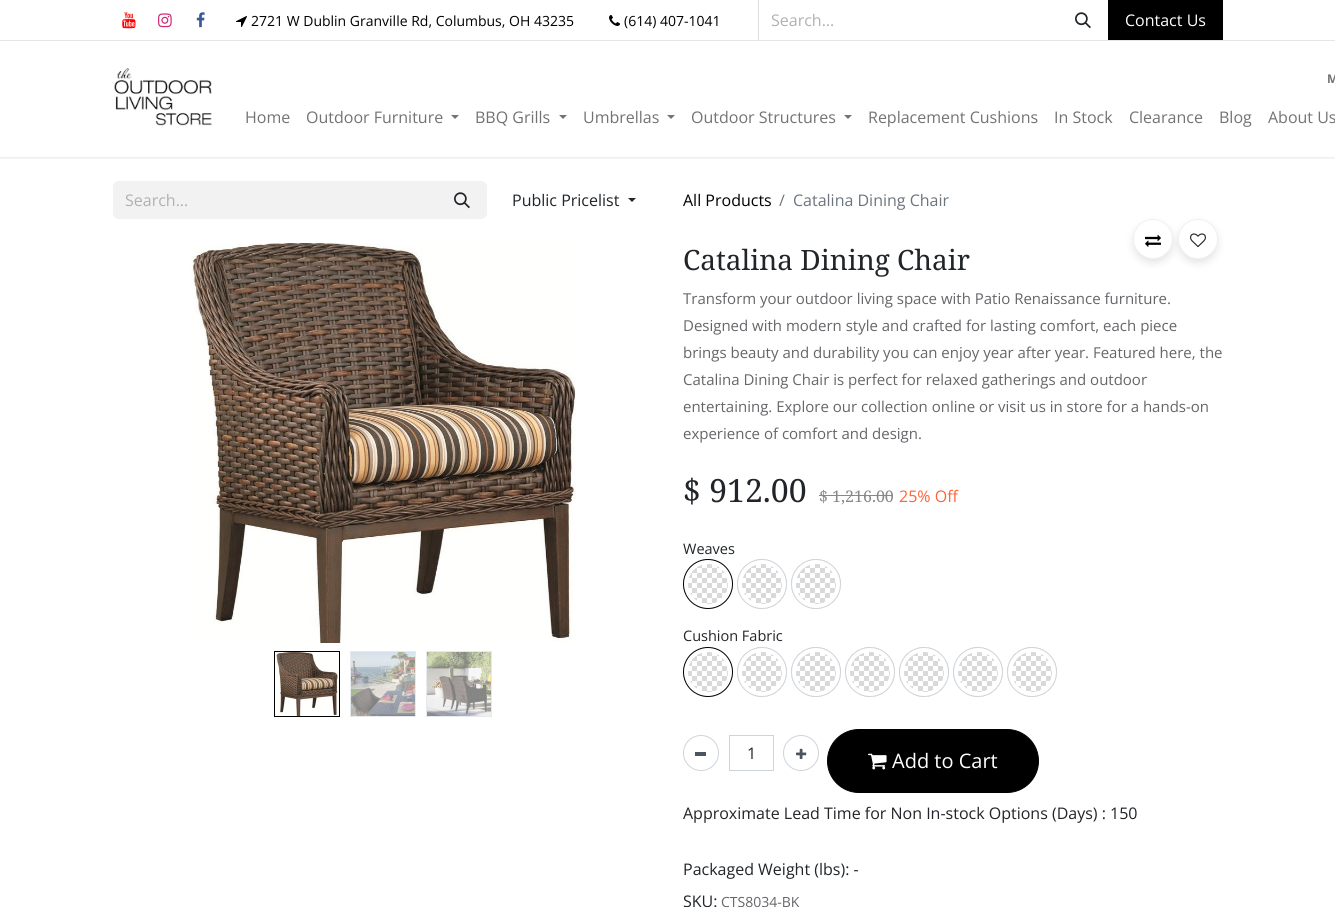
#include <cairo/cairo.h>
#include <math.h>
#include <stddef.h>

static cairo_t *cr;

static void use_color(int r, int g, int b) {
  cairo_set_source_rgb(cr, r / 255.0, g / 255.0, b / 255.0);
}

static void text(double x, double y, const char *s, const char *family, double size, int italic, int bold, int r, int g, int b) {
  cairo_select_font_face(cr, family, italic ? CAIRO_FONT_SLANT_ITALIC : CAIRO_FONT_SLANT_NORMAL,
    bold ? CAIRO_FONT_WEIGHT_BOLD : CAIRO_FONT_WEIGHT_NORMAL);
  cairo_set_font_size(cr, size);
  use_color(r, g, b);
  cairo_move_to(cr, x, y);
  cairo_show_text(cr, s);
}

static void box(double x, double y, double w, double h, int r, int g, int b) {
  use_color(r, g, b);
  cairo_rectangle(cr, x, y, w, h);
  cairo_fill(cr);
}

static void round_rect(double x, double y, double w, double h, double r) {
  cairo_new_sub_path(cr);
  cairo_arc(cr, x + w - r, y + h - r, r, 0, M_PI / 2);
  cairo_arc(cr, x + r, y + h - r, r, M_PI / 2, M_PI);
  cairo_arc(cr, x + r, y + r, r, M_PI, 1.5 * M_PI);
  cairo_arc(cr, x + w - r, y + r, r, 1.5 * M_PI, 2 * M_PI);
  cairo_close_path(cr);
}

static void shadow(double x, double y, double w, double h, double r, double blur, double alpha) {
  cairo_push_group_with_content(cr, CAIRO_CONTENT_ALPHA);
  cairo_set_operator(cr, CAIRO_OPERATOR_SOURCE);
  for (int i = 15; i >= -15 && fmin(w, h) + blur * i / 3 > 0; i -= 2) {
    double e = blur * i / 6;
    cairo_set_source_rgba(cr, 0, 0, 0, alpha * erfc((i - 1) / 8.5) / 2);
    round_rect(x - e, y - e, w + 2 * e, h + 2 * e, fmax(0, fmin(r + e + blur * .6, fmin(w, h) / 2 + e)));
    cairo_fill(cr);
  }
  cairo_pattern_t *soft = cairo_pop_group(cr);
  cairo_mask(cr, soft);
  cairo_pattern_destroy(soft);
}

static void picture(const char *path, double x, double y, double w, double h) {
  cairo_surface_t *image = cairo_image_surface_create_from_png(path);
  cairo_save(cr);
  cairo_set_source_surface(cr, image, x, y);
  cairo_rectangle(cr, x, y, w, h);
  cairo_fill(cr);
  cairo_restore(cr);
  cairo_surface_destroy(image);
}

static void draw(void) {
  use_color(255, 255, 255);
  cairo_paint(cr);
  cairo_save(cr);
  cairo_rectangle(cr, 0, 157, 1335, 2);
  cairo_clip(cr);
  use_color(0, 0, 0);
  shadow(0, 1, 1335, 157, 0, 1.5, 0.1);
  cairo_restore(cr);
  box(0, 40, 1335, 1, 230, 230, 230);
  picture("img_01.png", 122, 12, 14, 17);
  picture("img_02.png", 158, 13, 14, 15);
  picture("img_03.png", 196, 12, 9, 16);
  picture("img_04.png", 236, 16, 11, 11);
  picture("img_05.png", 609, 15, 11, 11);
  box(758, 0, 1, 40, 222, 222, 223);
  picture("img_06.png", 1075, 12, 16, 17);
  box(1108, 0, 115, 40, 0, 0, 0);
  picture("img_07.png", 114, 68, 98, 58);
  use_color(115, 115, 115);
  cairo_new_path(cr);
  cairo_move_to(cr, 451, 115);
  cairo_line_to(cr, 459, 115);
  cairo_line_to(cr, 455, 119);
  cairo_close_path(cr);
  cairo_fill(cr);
  cairo_new_path(cr);
  cairo_move_to(cr, 559, 115);
  cairo_line_to(cr, 567, 115);
  cairo_line_to(cr, 563, 119);
  cairo_close_path(cr);
  cairo_fill(cr);
  cairo_new_path(cr);
  cairo_move_to(cr, 667, 115);
  cairo_line_to(cr, 675, 115);
  cairo_line_to(cr, 671, 119);
  cairo_close_path(cr);
  cairo_fill(cr);
  cairo_new_path(cr);
  cairo_move_to(cr, 844, 115);
  cairo_line_to(cr, 852, 115);
  cairo_line_to(cr, 848, 119);
  cairo_close_path(cr);
  cairo_fill(cr);
  use_color(243, 242, 242);
  cairo_new_path(cr);
  cairo_move_to(cr, 119, 181);
  cairo_line_to(cr, 438, 181);
  cairo_line_to(cr, 438, 219);
  cairo_line_to(cr, 119, 219);
  cairo_curve_to(cr, 115.5, 219, 113, 216.5, 113, 213);
  cairo_line_to(cr, 113, 187);
  cairo_curve_to(cr, 113, 183.5, 115.5, 181, 119, 181);
  cairo_close_path(cr);
  cairo_fill(cr);
  cairo_new_path(cr);
  cairo_move_to(cr, 437.5, 181.5);
  cairo_line_to(cr, 481, 181.5);
  cairo_curve_to(cr, 484, 181.5, 486.5, 184, 486.5, 187);
  cairo_line_to(cr, 486.5, 213);
  cairo_curve_to(cr, 486.5, 216, 484, 218.5, 481, 218.5);
  cairo_line_to(cr, 437.5, 218.5);
  cairo_close_path(cr);
  cairo_fill_preserve(cr);
  cairo_set_line_width(cr, 1);
  cairo_stroke(cr);
  picture("img_08.png", 454, 192, 16, 17);
  use_color(33, 37, 41);
  cairo_new_path(cr);
  cairo_move_to(cr, 628, 198);
  cairo_line_to(cr, 636, 198);
  cairo_line_to(cr, 632, 202);
  cairo_close_path(cr);
  cairo_fill(cr);
  picture("img_09.png", 191, 243, 385, 400);
  cairo_rectangle(cr, 274.5, 651.5, 65, 65);
  use_color(0, 0, 0);
  cairo_stroke(cr);
  picture("img_10.png", 275, 652, 64, 64);
  cairo_rectangle(cr, 350.5, 651.5, 65, 65);
  use_color(231, 234, 237);
  cairo_stroke(cr);
  picture("img_11.png", 351, 652, 64, 64);
  cairo_rectangle(cr, 426.5, 651.5, 65, 65);
  cairo_stroke(cr);
  picture("img_12.png", 427, 652, 64, 64);
  use_color(0, 0, 0);
  shadow(1133, 223, 40, 40, 20, 4, 0.1);
  use_color(255, 255, 255);
  cairo_arc(cr, 1153, 239, 19.5, 0, 2 * M_PI);
  cairo_fill_preserve(cr);
  use_color(240, 240, 240);
  cairo_stroke(cr);
  picture("img_13.png", 1145, 234, 16, 13);
  use_color(0, 0, 0);
  shadow(1178, 223, 40, 40, 20, 4, 0.1);
  use_color(255, 255, 255);
  cairo_arc(cr, 1198, 239, 19.5, 0, 2 * M_PI);
  cairo_fill_preserve(cr);
  use_color(240, 240, 240);
  cairo_stroke(cr);
  picture("img_14.png", 1190, 233, 16, 15);
  box(819, 495, 74, 1, 136, 136, 136);
  picture("img_15.png", 683, 559, 50, 50);
  cairo_arc(cr, 708, 584, 23, 0, 2 * M_PI);
  use_color(0, 0, 0);
  cairo_set_line_width(cr, 4);
  cairo_stroke(cr);
  cairo_arc(cr, 708, 584, 22, 0, 2 * M_PI);
  use_color(255, 255, 255);
  cairo_stroke(cr);
  picture("img_16.png", 737, 559, 50, 50);
  cairo_arc(cr, 762, 584, 23, 0, 2 * M_PI);
  use_color(206, 212, 218);
  cairo_stroke(cr);
  cairo_arc(cr, 762, 584, 22, 0, 2 * M_PI);
  use_color(255, 255, 255);
  cairo_stroke(cr);
  picture("img_15.png", 791, 559, 50, 50);
  cairo_arc(cr, 816, 584, 23, 0, 2 * M_PI);
  use_color(206, 212, 218);
  cairo_stroke(cr);
  cairo_arc(cr, 816, 584, 22, 0, 2 * M_PI);
  use_color(255, 255, 255);
  cairo_stroke(cr);
  picture("img_15.png", 683, 647, 50, 50);
  cairo_arc(cr, 708, 672, 23, 0, 2 * M_PI);
  use_color(0, 0, 0);
  cairo_stroke(cr);
  cairo_arc(cr, 708, 672, 22, 0, 2 * M_PI);
  use_color(255, 255, 255);
  cairo_stroke(cr);
  picture("img_16.png", 737, 647, 50, 50);
  cairo_arc(cr, 762, 672, 23, 0, 2 * M_PI);
  use_color(206, 212, 218);
  cairo_stroke(cr);
  cairo_arc(cr, 762, 672, 22, 0, 2 * M_PI);
  use_color(255, 255, 255);
  cairo_stroke(cr);
  picture("img_15.png", 791, 647, 50, 50);
  cairo_arc(cr, 816, 672, 23, 0, 2 * M_PI);
  use_color(206, 212, 218);
  cairo_stroke(cr);
  cairo_arc(cr, 816, 672, 22, 0, 2 * M_PI);
  use_color(255, 255, 255);
  cairo_stroke(cr);
  picture("img_15.png", 845, 647, 50, 50);
  cairo_arc(cr, 870, 672, 23, 0, 2 * M_PI);
  use_color(206, 212, 218);
  cairo_stroke(cr);
  cairo_arc(cr, 870, 672, 22, 0, 2 * M_PI);
  use_color(255, 255, 255);
  cairo_stroke(cr);
  picture("img_15.png", 899, 647, 50, 50);
  cairo_arc(cr, 924, 672, 23, 0, 2 * M_PI);
  use_color(206, 212, 218);
  cairo_stroke(cr);
  cairo_arc(cr, 924, 672, 22, 0, 2 * M_PI);
  use_color(255, 255, 255);
  cairo_stroke(cr);
  picture("img_15.png", 953, 647, 50, 50);
  cairo_arc(cr, 978, 672, 23, 0, 2 * M_PI);
  use_color(206, 212, 218);
  cairo_stroke(cr);
  cairo_arc(cr, 978, 672, 22, 0, 2 * M_PI);
  use_color(255, 255, 255);
  cairo_stroke(cr);
  picture("img_17.png", 1007, 647, 50, 50);
  cairo_arc(cr, 1032, 672, 23, 0, 2 * M_PI);
  use_color(206, 212, 218);
  cairo_stroke(cr);
  cairo_arc(cr, 1032, 672, 22, 0, 2 * M_PI);
  use_color(255, 255, 255);
  cairo_stroke(cr);
  cairo_arc(cr, 701, 753, 17.5, 0, 2 * M_PI);
  use_color(206, 212, 218);
  cairo_set_line_width(cr, 1);
  cairo_stroke(cr);
  box(695, 752, 11, 4, 76, 84, 98);
  cairo_rectangle(cr, 729.5, 735.5, 44, 35);
  use_color(206, 212, 218);
  cairo_stroke(cr);
  cairo_arc(cr, 801, 753, 17.5, 0, 2 * M_PI);
  cairo_stroke(cr);
  picture("img_18.png", 796, 748, 11, 11);
  use_color(0, 0, 0);
  round_rect(827.5, 729.5, 211, 63, 31.5);
  cairo_fill_preserve(cr);
  cairo_stroke(cr);
  picture("img_19.png", 868, 753, 19, 17);
  text(251, 26, "2721 W Dublin Granville Rd, Columbus, OH 43235", "Open Sans", 14, 0, 0, 0, 0, 0);
  text(624, 26, "(614) 407-1041", "Open Sans", 14, 0, 0, 0, 0, 0);
  text(771, 26, "Search...", "Open Sans", 16, 0, 0, 177, 177, 177);
  text(1125, 26, "Contact Us", "Open Sans", 16, 0, 0, 255, 255, 255);
  text(1327, 83, "M", "Open Sans", 12, 0, 1, 115, 115, 115);
  text(245, 123, "Home", "Open Sans", 16, 0, 0, 115, 115, 115);
  text(306, 123, "Outdoor Furniture", "Open Sans", 16, 0, 0, 115, 115, 115);
  text(475, 123, "BBQ Grills", "Open Sans", 16, 0, 0, 115, 115, 115);
  text(583, 123, "Umbrellas", "Open Sans", 16, 0, 0, 115, 115, 115);
  text(691, 123, "Outdoor Structures", "Open Sans", 16, 0, 0, 115, 115, 115);
  text(868, 123, "Replacement Cushions", "Open Sans", 16, 0, 0, 115, 115, 115);
  text(1054, 123, "In Stock", "Open Sans", 16, 0, 0, 115, 115, 115);
  text(1129, 123, "Clearance", "Open Sans", 16, 0, 0, 115, 115, 115);
  text(1219, 123, "Blog", "Open Sans", 16, 0, 0, 115, 115, 115);
  text(1268, 123, "About Us", "Open Sans", 16, 0, 0, 115, 115, 115);
  text(125, 206, "Search...", "Open Sans", 16, 0, 0, 177, 177, 177);
  text(512, 206, "Public Pricelist", "Open Sans", 16, 0, 0, 33, 37, 41);
  text(683, 206, "All Products", "Open Sans", 16, 0, 0, 0, 0, 0);
  text(779, 206, "/", "Open Sans", 16, 0, 0, 108, 117, 125);
  text(793, 206, "Catalina Dining Chair", "Open Sans", 16, 0, 0, 108, 117, 125);
  text(683, 270, "Catalina Dining Chair", "Noto Serif", 28, 0, 0, 33, 37, 41);
  text(683, 304, "Transform your outdoor living space with Patio Renaissance furniture.", "Open Sans", 15, 0, 0, 100, 102, 105);
  text(683, 331, "Designed with modern style and crafted for lasting comfort, each piece", "Open Sans", 15, 0, 0, 100, 102, 105);
  text(683, 358, "brings beauty and durability you can enjoy year after year. Featured here, the", "Open Sans", 15, 0, 0, 100, 102, 105);
  text(683, 385, "Catalina Dining Chair is perfect for relaxed gatherings and outdoor", "Open Sans", 15, 0, 0, 100, 102, 105);
  text(683, 412, "entertaining. Explore our collection online or visit us in store for a hands-on", "Open Sans", 15, 0, 0, 100, 102, 105);
  text(683, 439, "experience of comfort and design.", "Open Sans", 15, 0, 0, 100, 102, 105);
  text(683, 502, "$ 912.00", "Noto Serif", 32, 0, 0, 33, 37, 41);
  text(819, 502, "$ 1,216.00", "Noto Serif", 16, 0, 0, 136, 136, 136);
  text(899, 502, "25% Off", "Open Sans", 16, 0, 0, 255, 100, 53);
  text(683, 554, "Weaves", "Open Sans", 14.5, 0, 0, 33, 37, 41);
  text(683, 641, "Cushion Fabric", "Open Sans", 14.5, 0, 0, 33, 37, 41);
  text(747, 759, "1", "Open Sans", 16, 0, 0, 33, 37, 41);
  text(892, 768, "Add to Cart", "Open Sans", 20, 0, 0, 255, 255, 255);
  text(683, 819, "Approximate Lead Time for Non In-stock Options (Days) : 150", "Open Sans", 16, 0, 0, 33, 37, 41);
  text(683, 875, "Packaged Weight (lbs): -", "Open Sans", 16, 0, 0, 33, 37, 41);
  text(683, 907, "SKU:", "Open Sans", 16, 0, 0, 33, 37, 41);
  text(721, 907, "CTS8034-BK", "Open Sans", 14, 0, 0, 100, 102, 105);
}

int main(void) {
  cairo_surface_t *surface = cairo_image_surface_create(CAIRO_FORMAT_RGB24, 1335, 907);
  cr = cairo_create(surface);
  cairo_font_options_t *options = cairo_font_options_create();
  cairo_font_options_set_hint_metrics(options, CAIRO_HINT_METRICS_OFF);
  cairo_font_options_set_hint_style(options, CAIRO_HINT_STYLE_NONE);
  cairo_set_font_options(cr, options);
  cairo_set_miter_limit(cr, 4);
  draw();
  cairo_surface_write_to_png(surface, "out.png");
  cairo_font_options_destroy(options);
  cairo_destroy(cr);
  cairo_surface_destroy(surface);
  return 0;
}
